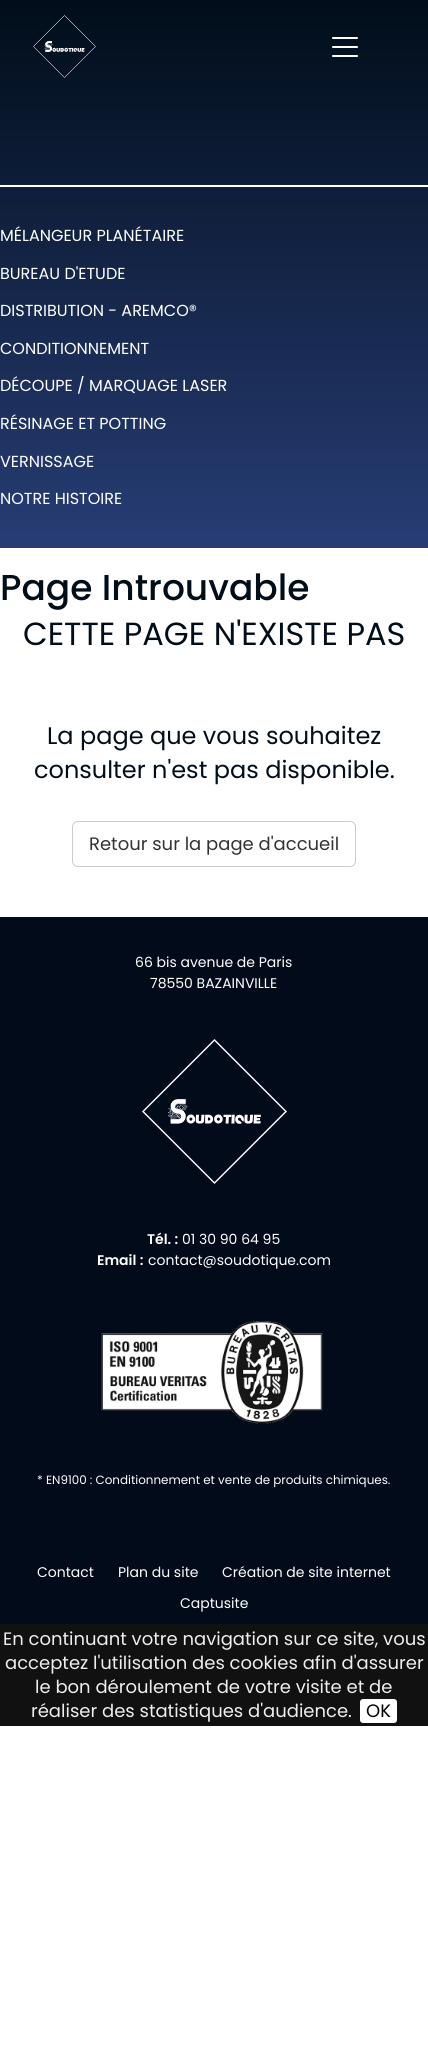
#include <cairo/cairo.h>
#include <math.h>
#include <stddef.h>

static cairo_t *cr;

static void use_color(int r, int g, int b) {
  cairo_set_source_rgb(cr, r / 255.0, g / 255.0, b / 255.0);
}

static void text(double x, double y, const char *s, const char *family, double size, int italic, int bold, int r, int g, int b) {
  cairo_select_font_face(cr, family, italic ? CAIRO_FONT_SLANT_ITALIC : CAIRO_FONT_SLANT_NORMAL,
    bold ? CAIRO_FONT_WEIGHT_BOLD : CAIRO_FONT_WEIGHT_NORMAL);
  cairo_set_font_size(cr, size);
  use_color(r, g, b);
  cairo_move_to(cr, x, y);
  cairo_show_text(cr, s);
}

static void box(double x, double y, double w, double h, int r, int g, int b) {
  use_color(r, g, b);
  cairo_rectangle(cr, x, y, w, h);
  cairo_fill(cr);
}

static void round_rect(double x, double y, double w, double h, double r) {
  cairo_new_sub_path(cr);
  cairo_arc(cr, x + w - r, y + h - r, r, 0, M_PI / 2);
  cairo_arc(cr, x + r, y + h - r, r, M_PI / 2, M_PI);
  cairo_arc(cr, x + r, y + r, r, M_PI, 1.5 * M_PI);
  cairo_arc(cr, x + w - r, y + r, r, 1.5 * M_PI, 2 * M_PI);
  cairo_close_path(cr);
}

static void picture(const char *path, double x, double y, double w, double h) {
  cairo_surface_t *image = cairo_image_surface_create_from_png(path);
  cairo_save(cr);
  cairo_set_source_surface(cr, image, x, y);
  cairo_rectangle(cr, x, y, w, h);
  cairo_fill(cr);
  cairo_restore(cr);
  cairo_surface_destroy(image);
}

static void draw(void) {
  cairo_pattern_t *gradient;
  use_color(255, 255, 255);
  cairo_paint(cr);
  gradient = cairo_pattern_create_linear(214, 0, 214, 548);
  cairo_pattern_add_color_stop_rgba(gradient, 0, 0.004, 0.051, 0.098, 1);
  cairo_pattern_add_color_stop_rgba(gradient, 1, 0.153, 0.239, 0.459, 1);
  cairo_set_source(cr, gradient);
  cairo_pattern_destroy(gradient);
  cairo_rectangle(cr, 0, 0, 428, 548);
  cairo_fill(cr);
  picture("img_01.png", 33, 15, 63, 63);
  use_color(255, 255, 255);
  round_rect(332, 37, 26, 2, 1);
  cairo_fill(cr);
  round_rect(332, 46, 26, 2, 1);
  cairo_fill(cr);
  round_rect(332, 55, 26, 2, 1);
  cairo_fill(cr);
  box(0, 185, 428, 2, 255, 255, 255);
  round_rect(72.5, 821.5, 283, 45, 5.5);
  use_color(204, 204, 204);
  cairo_set_line_width(cr, 1);
  cairo_stroke(cr);
  box(0, 917, 428, 707, 2, 11, 26);
  picture("img_02.png", 142, 1039, 145, 145);
  picture("img_03.png", 101, 1321, 222, 103);
  box(0, 1624, 428, 102, 17, 17, 17);
  use_color(255, 255, 255);
  round_rect(360, 1699, 37, 24, 3);
  cairo_fill(cr);
  text(0, 241, "MÉLANGEUR PLANÉTAIRE", "Poppins", 16, 0, 0, 255, 255, 255);
  text(0, 279, "BUREAU D'ETUDE", "Poppins", 16, 0, 0, 255, 255, 255);
  text(0, 316, "DISTRIBUTION - AREMCO®", "Poppins", 16, 0, 0, 255, 255, 255);
  text(0, 354, "CONDITIONNEMENT", "Poppins", 16, 0, 0, 255, 255, 255);
  text(0, 391, "DÉCOUPE / MARQUAGE LASER", "Poppins", 16, 0, 0, 255, 255, 255);
  text(0, 429, "RÉSINAGE ET POTTING", "Poppins", 16, 0, 0, 255, 255, 255);
  text(0, 467, "VERNISSAGE", "Poppins", 16, 0, 0, 255, 255, 255);
  text(0, 504, "NOTRE HISTOIRE", "Poppins", 16, 0, 0, 255, 255, 255);
  text(0, 600, "Page Introuvable", "Poppins Medium", 36, 0, 0, 1, 13, 25);
  text(23, 645, "CETTE PAGE N'EXISTE PAS", "Poppins", 32, 0, 0, 1, 13, 25);
  text(47, 744, "La page que vous souhaitez", "Poppins", 24, 0, 0, 1, 13, 25);
  text(34, 778, "consulter n'est pas disponible.", "Poppins", 24, 0, 0, 1, 13, 25);
  text(89, 850, "Retour sur la page d'accueil", "Poppins", 18, 0, 0, 51, 51, 51);
  text(135, 967, "66 bis avenue de Paris", "Poppins", 14, 0, 0, 255, 255, 255);
  text(150, 988, "78550 BAZAINVILLE", "Poppins", 14, 0, 0, 255, 255, 255);
  text(147, 1244, "Tél. :", "Poppins SemiBold", 14, 0, 0, 255, 255, 255);
  text(182, 1244, "01 30 90 64 95", "Poppins", 14, 0, 0, 255, 255, 255);
  text(97, 1265, "Email :", "Poppins SemiBold", 14, 0, 0, 255, 255, 255);
  text(148, 1265, "contact@soudotique.com", "Poppins", 14, 0, 0, 255, 255, 255);
  text(37, 1484, "* EN9100 : Conditionnement et vente de produits chimiques.", "Poppins", 11.9, 0, 0, 255, 255, 255);
  text(37, 1577, "Contact", "Poppins", 14, 0, 0, 255, 255, 255);
  text(118, 1577, "Plan du site", "Poppins", 14, 0, 0, 255, 255, 255);
  text(222, 1577, "Création de site internet", "Poppins", 14, 0, 0, 255, 255, 255);
  text(180, 1608, "Captusite", "Poppins", 14, 0, 0, 255, 255, 255);
  text(3, 1645, "En continuant votre navigation sur ce site, vous", "Poppins", 18, 0, 0, 238, 238, 238);
  text(5, 1669, "acceptez l'utilisation des cookies afin d'assurer", "Poppins", 18, 0, 0, 238, 238, 238);
  text(35, 1693, "le bon déroulement de votre visite et de", "Poppins", 18, 0, 0, 238, 238, 238);
  text(31, 1717, "réaliser des statistiques d'audience.", "Poppins", 18, 0, 0, 238, 238, 238);
  text(366, 1717, "OK", "Poppins", 18, 0, 0, 0, 0, 0);
}

int main(void) {
  cairo_surface_t *surface = cairo_image_surface_create(CAIRO_FORMAT_RGB24, 428, 2058);
  cr = cairo_create(surface);
  cairo_font_options_t *options = cairo_font_options_create();
  cairo_font_options_set_hint_metrics(options, CAIRO_HINT_METRICS_OFF);
  cairo_font_options_set_hint_style(options, CAIRO_HINT_STYLE_NONE);
  cairo_set_font_options(cr, options);
  cairo_set_miter_limit(cr, 4);
  draw();
  cairo_surface_write_to_png(surface, "out.png");
  cairo_font_options_destroy(options);
  cairo_destroy(cr);
  cairo_surface_destroy(surface);
  return 0;
}
